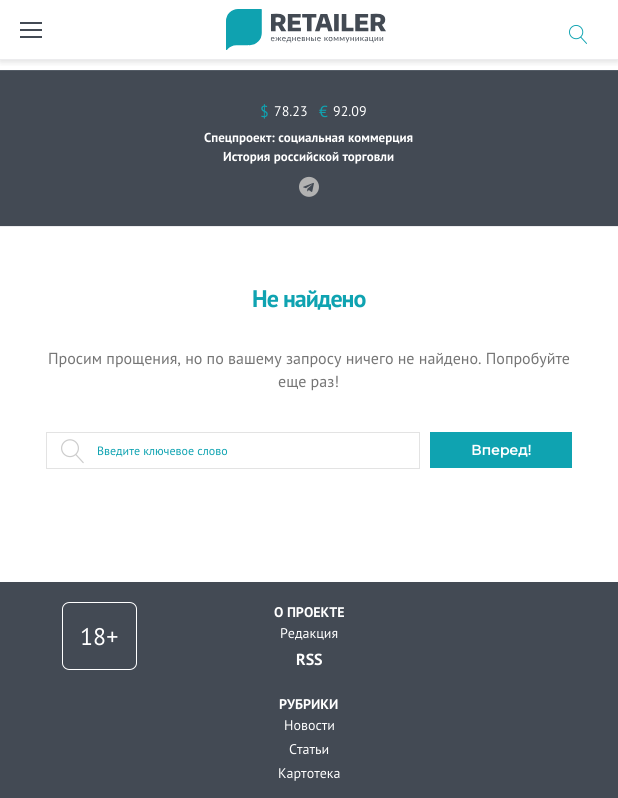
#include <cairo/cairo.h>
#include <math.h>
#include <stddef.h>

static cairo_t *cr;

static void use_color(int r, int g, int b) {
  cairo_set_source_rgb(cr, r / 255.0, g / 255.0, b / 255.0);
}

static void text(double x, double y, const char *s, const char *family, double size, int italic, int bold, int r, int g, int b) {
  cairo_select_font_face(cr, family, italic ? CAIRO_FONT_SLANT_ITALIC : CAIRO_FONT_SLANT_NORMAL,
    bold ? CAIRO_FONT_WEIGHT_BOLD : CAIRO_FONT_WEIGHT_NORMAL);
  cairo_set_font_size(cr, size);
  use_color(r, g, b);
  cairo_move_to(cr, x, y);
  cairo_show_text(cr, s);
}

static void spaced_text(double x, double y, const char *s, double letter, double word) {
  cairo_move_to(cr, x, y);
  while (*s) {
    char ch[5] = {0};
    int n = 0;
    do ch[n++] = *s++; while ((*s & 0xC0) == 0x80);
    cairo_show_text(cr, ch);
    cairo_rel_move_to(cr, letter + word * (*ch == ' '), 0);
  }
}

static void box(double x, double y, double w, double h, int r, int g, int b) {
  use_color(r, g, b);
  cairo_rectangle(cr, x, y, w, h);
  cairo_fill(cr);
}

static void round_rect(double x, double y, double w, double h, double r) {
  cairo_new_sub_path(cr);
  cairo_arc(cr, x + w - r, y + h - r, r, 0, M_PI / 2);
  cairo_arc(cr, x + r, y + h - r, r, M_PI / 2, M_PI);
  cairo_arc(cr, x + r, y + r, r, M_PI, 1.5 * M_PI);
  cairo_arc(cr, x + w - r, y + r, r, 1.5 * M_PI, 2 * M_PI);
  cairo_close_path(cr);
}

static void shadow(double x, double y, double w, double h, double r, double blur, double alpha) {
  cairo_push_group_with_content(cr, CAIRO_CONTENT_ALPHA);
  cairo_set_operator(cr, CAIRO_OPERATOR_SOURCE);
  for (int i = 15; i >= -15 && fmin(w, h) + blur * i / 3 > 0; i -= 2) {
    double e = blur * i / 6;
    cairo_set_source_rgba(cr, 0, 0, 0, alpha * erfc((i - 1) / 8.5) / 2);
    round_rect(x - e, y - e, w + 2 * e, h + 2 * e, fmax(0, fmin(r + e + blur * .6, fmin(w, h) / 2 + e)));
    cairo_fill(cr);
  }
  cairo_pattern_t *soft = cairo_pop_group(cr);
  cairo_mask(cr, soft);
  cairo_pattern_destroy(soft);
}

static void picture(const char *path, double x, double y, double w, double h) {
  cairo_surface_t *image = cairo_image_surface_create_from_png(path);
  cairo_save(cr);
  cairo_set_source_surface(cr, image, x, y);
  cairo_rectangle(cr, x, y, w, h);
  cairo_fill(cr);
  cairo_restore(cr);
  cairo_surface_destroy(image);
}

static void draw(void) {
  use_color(255, 255, 255);
  cairo_paint(cr);
  box(0, 71, 618, 155, 67, 74, 84);
  box(0, 70, 618, 1, 84, 92, 102);
  cairo_save(cr);
  cairo_rectangle(cr, 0, 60, 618, 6);
  cairo_clip(cr);
  use_color(136, 136, 136);
  shadow(0, 2, 618, 60, 0, 3, 0.26);
  cairo_restore(cr);
  box(0, 59, 618, 1, 236, 236, 238);
  box(20, 29, 22, 2, 67, 74, 84);
  box(20, 22, 22, 2, 67, 74, 84);
  box(20, 36, 22, 2, 67, 74, 84);
  picture("img_01.png", 226, 9, 160, 41);
  picture("img_02.png", 569, 24, 18, 20);
  picture("img_03.png", 299, 176, 20, 21);
  box(0, 226, 618, 1, 236, 236, 238);
  cairo_rectangle(cr, 46.5, 432.5, 373, 36);
  use_color(227, 227, 227);
  cairo_set_line_width(cr, 1);
  cairo_stroke(cr);
  picture("img_04.png", 61, 439, 23, 25);
  box(430, 432, 142, 36, 15, 163, 177);
  box(0, 582, 618, 216, 67, 74, 84);
  cairo_new_path(cr);
  cairo_move_to(cr, 69.5, 602.5);
  cairo_line_to(cr, 129.5, 602.5);
  cairo_curve_to(cr, 133.5, 602.5, 136.5, 605.5, 136.5, 609);
  cairo_line_to(cr, 136.5, 663);
  cairo_curve_to(cr, 136.5, 666.5, 133.5, 669.5, 129.5, 669.5);
  cairo_line_to(cr, 69.5, 669.5);
  cairo_curve_to(cr, 65.5, 669.5, 62.5, 666.5, 62.5, 663);
  cairo_line_to(cr, 62.5, 609);
  cairo_curve_to(cr, 62.5, 605.5, 65.5, 602.5, 69.5, 602.5);
  cairo_close_path(cr);
  use_color(255, 255, 255);
  cairo_stroke(cr);
  text(260, 117, "$", "PT Sans", 16, 0, 0, 15, 163, 177);
  text(274, 116, "78.23", "PT Sans", 14, 0, 0, 255, 255, 255);
  text(319, 117, "€", "PT Sans", 16, 0, 0, 15, 163, 177);
  text(333, 116, "92.09", "PT Sans", 14, 0, 0, 255, 255, 255);
  text(204, 142, "Спецпроект: социальная коммерция", "PT Sans", 13, 0, 1, 255, 255, 255);
  text(223, 161, "История российской торговли", "PT Sans", 13, 0, 1, 255, 255, 255);
  cairo_set_font_size(cr, 24);
  use_color(15, 163, 177);
  spaced_text(252, 307, "Не найдено", -1, 0);
  text(48, 364, "Просим прощения, но по вашему запросу ничего не найдено. Попробуйте", "PT Sans", 16, 0, 0, 117, 117, 117);
  text(278, 387, "еще раз!", "PT Sans", 16, 0, 0, 117, 117, 117);
  text(97, 455, "Введите ключевое слово", "PT Sans", 12, 0, 0, 15, 163, 177);
  text(471, 455, "Вперед!", "Montserrat", 14, 0, 1, 255, 255, 255);
  text(80, 645, "18+", "PT Sans", 24, 0, 0, 255, 255, 255);
  text(274, 617, "О ПРОЕКТЕ", "PT Sans", 14, 0, 1, 255, 255, 255);
  text(280, 638, "Редакция", "PT Sans", 14, 0, 0, 255, 255, 255);
  text(296, 665, "RSS", "PT Sans", 16, 0, 1, 255, 255, 255);
  text(279, 709, "РУБРИКИ", "PT Sans", 14, 0, 1, 255, 255, 255);
  text(284, 730, "Новости", "PT Sans", 14, 0, 0, 255, 255, 255);
  text(289, 754, "Статьи", "PT Sans", 14, 0, 0, 255, 255, 255);
  text(278, 778, "Картотека", "PT Sans", 14, 0, 0, 255, 255, 255);
}

int main(void) {
  cairo_surface_t *surface = cairo_image_surface_create(CAIRO_FORMAT_RGB24, 618, 798);
  cr = cairo_create(surface);
  cairo_font_options_t *options = cairo_font_options_create();
  cairo_font_options_set_hint_metrics(options, CAIRO_HINT_METRICS_OFF);
  cairo_font_options_set_hint_style(options, CAIRO_HINT_STYLE_NONE);
  cairo_set_font_options(cr, options);
  cairo_set_miter_limit(cr, 4);
  draw();
  cairo_surface_write_to_png(surface, "out.png");
  cairo_font_options_destroy(options);
  cairo_destroy(cr);
  cairo_surface_destroy(surface);
  return 0;
}
